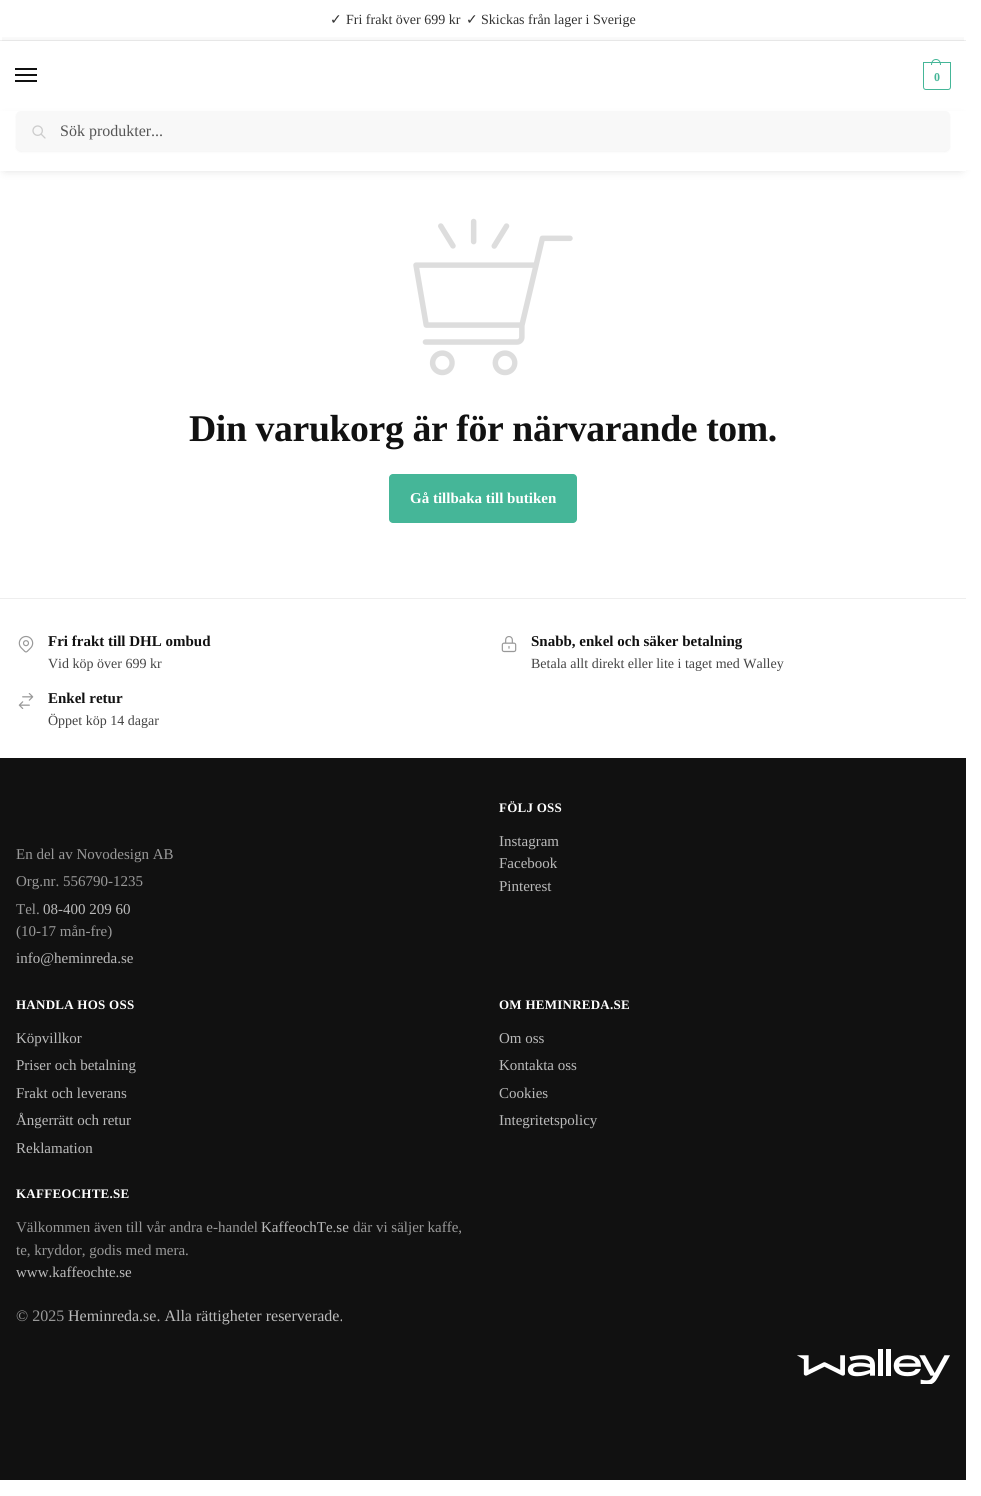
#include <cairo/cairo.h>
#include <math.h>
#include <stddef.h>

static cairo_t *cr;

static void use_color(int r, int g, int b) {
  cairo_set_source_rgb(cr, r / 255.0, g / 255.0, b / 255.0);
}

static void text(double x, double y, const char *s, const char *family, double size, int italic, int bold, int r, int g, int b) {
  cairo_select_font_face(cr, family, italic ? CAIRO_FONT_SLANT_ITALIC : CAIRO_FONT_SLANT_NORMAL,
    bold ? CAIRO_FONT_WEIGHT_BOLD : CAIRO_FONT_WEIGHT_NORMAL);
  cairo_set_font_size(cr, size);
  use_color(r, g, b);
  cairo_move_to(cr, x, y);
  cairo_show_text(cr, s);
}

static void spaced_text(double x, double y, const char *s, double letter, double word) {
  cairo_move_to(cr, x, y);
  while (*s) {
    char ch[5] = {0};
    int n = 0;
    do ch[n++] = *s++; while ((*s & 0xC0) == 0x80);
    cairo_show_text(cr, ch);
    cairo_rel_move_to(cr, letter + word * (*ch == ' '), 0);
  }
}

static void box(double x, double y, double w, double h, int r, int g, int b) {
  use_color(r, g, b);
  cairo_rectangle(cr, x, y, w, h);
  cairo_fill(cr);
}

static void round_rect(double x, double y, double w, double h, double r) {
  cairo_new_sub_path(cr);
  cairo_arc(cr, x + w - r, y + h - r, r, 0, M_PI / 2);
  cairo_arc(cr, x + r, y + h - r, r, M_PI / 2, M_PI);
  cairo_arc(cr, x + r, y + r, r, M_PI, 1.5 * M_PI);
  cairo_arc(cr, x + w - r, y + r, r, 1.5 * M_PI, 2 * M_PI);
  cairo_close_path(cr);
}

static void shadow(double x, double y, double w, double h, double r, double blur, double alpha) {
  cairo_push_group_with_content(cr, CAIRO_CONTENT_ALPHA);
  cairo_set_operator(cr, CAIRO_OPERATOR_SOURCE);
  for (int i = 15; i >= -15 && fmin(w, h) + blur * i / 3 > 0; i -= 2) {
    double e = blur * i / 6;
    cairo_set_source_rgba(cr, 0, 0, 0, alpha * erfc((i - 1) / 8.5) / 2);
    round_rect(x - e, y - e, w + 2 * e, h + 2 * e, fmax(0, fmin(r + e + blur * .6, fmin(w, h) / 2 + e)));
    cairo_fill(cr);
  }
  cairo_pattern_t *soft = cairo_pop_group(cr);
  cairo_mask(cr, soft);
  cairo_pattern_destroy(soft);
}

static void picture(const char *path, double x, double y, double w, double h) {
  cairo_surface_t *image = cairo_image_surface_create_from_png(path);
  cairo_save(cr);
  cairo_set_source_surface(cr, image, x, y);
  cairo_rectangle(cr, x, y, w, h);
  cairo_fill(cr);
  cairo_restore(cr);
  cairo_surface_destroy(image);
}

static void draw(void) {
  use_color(255, 255, 255);
  cairo_paint(cr);
  box(0, 40, 966, 1, 238, 238, 238);
  cairo_save(cr);
  cairo_rectangle(cr, 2, 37, 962, 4);
  cairo_clip(cr);
  use_color(0, 0, 0);
  shadow(0, 42, 966, 70, 0, 7.5, 0.08);
  cairo_restore(cr);
  box(15, 68, 22, 2, 17, 17, 17);
  box(15, 74, 22, 2, 17, 17, 17);
  box(15, 80, 22, 2, 17, 17, 17);
  cairo_new_path(cr);
  cairo_move_to(cr, 923.5, 62.5);
  cairo_line_to(cr, 950.5, 62.5);
  cairo_line_to(cr, 950.5, 87);
  cairo_curve_to(cr, 950.5, 88.5, 949.5, 89.5, 948, 89.5);
  cairo_line_to(cr, 926, 89.5);
  cairo_curve_to(cr, 924.5, 89.5, 923.5, 88.5, 923.5, 87);
  cairo_close_path(cr);
  use_color(69, 182, 152);
  cairo_set_line_width(cr, 1);
  cairo_stroke(cr);
  cairo_set_fill_rule(cr, CAIRO_FILL_RULE_EVEN_ODD);
  cairo_new_path(cr);
  cairo_move_to(cr, 936, 59);
  cairo_curve_to(cr, 939.5, 59, 941, 62, 941, 65);
  cairo_line_to(cr, 931, 65);
  cairo_curve_to(cr, 931, 62, 932.5, 59, 936, 59);
  cairo_close_path(cr);
  cairo_move_to(cr, 936, 60);
  cairo_curve_to(cr, 939, 60, 940, 62.5, 940, 65);
  cairo_line_to(cr, 932, 65);
  cairo_curve_to(cr, 932, 62.5, 933, 60, 936, 60);
  cairo_close_path(cr);
  cairo_fill(cr);
  use_color(0, 0, 0);
  shadow(5, 119, 956, 50, 0, 5, 0.18);
  box(0, 111, 966, 60, 255, 255, 255);
  use_color(0, 0, 0);
  shadow(16, 112, 934, 40, 5, 1, 0.05);
  use_color(248, 248, 248);
  round_rect(16, 111, 934, 40, 5);
  cairo_fill(cr);
  picture("img_01.png", 32, 125, 14, 14);
  box(966, 37, 9, 133, 255, 255, 255);
  picture("img_02.png", 413, 218, 160, 158);
  use_color(69, 182, 152);
  round_rect(389, 474, 188, 49, 4);
  cairo_fill(cr);
  box(0, 598, 966, 1, 238, 238, 238);
  picture("img_03.png", 18, 635, 16, 18);
  picture("img_04.png", 501, 636, 16, 17);
  picture("img_05.png", 18, 693, 16, 16);
  box(0, 758, 966, 722, 17, 17, 17);
  picture("img_06.png", 797, 1349, 153, 35);
  text(330, 24, "✓", "DejaVu Sans", 14, 0, 0, 50, 50, 50);
  text(346, 24, "Fri frakt över 699 kr", "Liberation Serif", 14, 0, 0, 50, 50, 50);
  text(466, 24, "✓", "DejaVu Sans", 14, 0, 0, 50, 50, 50);
  text(481, 24, "Skickas från lager i Sverige", "Liberation Serif", 14, 0, 0, 50, 50, 50);
  cairo_select_font_face(cr, "Liberation Serif", CAIRO_FONT_SLANT_NORMAL, CAIRO_FONT_WEIGHT_BOLD);
  cairo_set_font_size(cr, 12);
  use_color(69, 182, 152);
  spaced_text(934, 81, "0", -1, 0);
  text(60, 136, "Sök produkter...", "Liberation Serif", 16, 0, 0, 85, 85, 85);
  cairo_select_font_face(cr, "Liberation Serif", CAIRO_FONT_SLANT_NORMAL, CAIRO_FONT_WEIGHT_BOLD);
  cairo_set_font_size(cr, 37.75);
  use_color(17, 17, 17);
  spaced_text(189, 441, "Din varukorg är för närvarande tom.", -0.4, 0);
  text(410, 503, "Gå tillbaka till butiken", "Liberation Serif", 15, 0, 1, 255, 255, 255);
  text(48, 646, "Fri frakt till DHL ombud", "Liberation Serif", 15, 0, 1, 17, 17, 17);
  text(48, 668, "Vid köp över 699 kr", "Liberation Serif", 14, 0, 0, 68, 68, 68);
  text(531, 646, "Snabb, enkel och säker betalning", "Liberation Serif", 15, 0, 1, 17, 17, 17);
  text(531, 668, "Betala allt direkt eller lite i taget med Walley", "Liberation Serif", 14, 0, 0, 68, 68, 68);
  text(48, 703, "Enkel retur", "Liberation Serif", 15, 0, 1, 17, 17, 17);
  text(48, 725, "Öppet köp 14 dagar", "Liberation Serif", 14, 0, 0, 68, 68, 68);
  text(16, 859, "En del av Novodesign AB", "Liberation Serif", 15, 0, 0, 153, 153, 153);
  text(16, 886, "Org.nr. 556790-1235", "Liberation Serif", 15, 0, 0, 153, 153, 153);
  text(16, 914, "Tel.", "Liberation Serif", 15, 0, 0, 153, 153, 153);
  text(43, 914, "08-400 209 60", "Liberation Serif", 15, 0, 0, 187, 187, 187);
  text(16, 936, "(10-17 mån-fre)", "Liberation Serif", 15, 0, 0, 153, 153, 153);
  text(16, 963, "info@heminreda.se", "Liberation Serif", 15, 0, 0, 187, 187, 187);
  cairo_select_font_face(cr, "Liberation Serif", CAIRO_FONT_SLANT_NORMAL, CAIRO_FONT_WEIGHT_BOLD);
  cairo_set_font_size(cr, 13);
  use_color(255, 255, 255);
  spaced_text(499, 812, "FÖLJ OSS", 0.25, 0);
  text(499, 846, "Instagram", "Liberation Serif", 15, 0, 0, 187, 187, 187);
  text(499, 868, "Facebook", "Liberation Serif", 15, 0, 0, 187, 187, 187);
  text(499, 891, "Pinterest", "Liberation Serif", 15, 0, 0, 187, 187, 187);
  cairo_select_font_face(cr, "Liberation Serif", CAIRO_FONT_SLANT_NORMAL, CAIRO_FONT_WEIGHT_BOLD);
  cairo_set_font_size(cr, 13);
  use_color(255, 255, 255);
  spaced_text(16, 1009, "HANDLA HOS OSS", 0.25, 0);
  text(16, 1043, "Köpvillkor", "Liberation Serif", 15, 0, 0, 187, 187, 187);
  text(16, 1070, "Priser och betalning", "Liberation Serif", 15, 0, 0, 187, 187, 187);
  text(16, 1098, "Frakt och leverans", "Liberation Serif", 15, 0, 0, 187, 187, 187);
  text(16, 1125, "Ångerrätt och retur", "Liberation Serif", 15, 0, 0, 187, 187, 187);
  text(16, 1153, "Reklamation", "Liberation Serif", 15, 0, 0, 187, 187, 187);
  cairo_select_font_face(cr, "Liberation Serif", CAIRO_FONT_SLANT_NORMAL, CAIRO_FONT_WEIGHT_BOLD);
  cairo_set_font_size(cr, 13);
  use_color(255, 255, 255);
  spaced_text(499, 1009, "OM HEMINREDA.SE", 0.25, 0);
  text(499, 1043, "Om oss", "Liberation Serif", 15, 0, 0, 187, 187, 187);
  text(499, 1070, "Kontakta oss", "Liberation Serif", 15, 0, 0, 187, 187, 187);
  text(499, 1098, "Cookies", "Liberation Serif", 15, 0, 0, 187, 187, 187);
  text(499, 1125, "Integritetspolicy", "Liberation Serif", 15, 0, 0, 187, 187, 187);
  cairo_select_font_face(cr, "Liberation Serif", CAIRO_FONT_SLANT_NORMAL, CAIRO_FONT_WEIGHT_BOLD);
  cairo_set_font_size(cr, 13);
  use_color(255, 255, 255);
  spaced_text(16, 1198, "KAFFEOCHTE.SE", 0.25, 0);
  text(16, 1232, "Välkommen även till vår andra e-handel", "Liberation Serif", 15, 0, 0, 153, 153, 153);
  text(261, 1232, "KaffeochTe.se", "Liberation Serif", 15, 0, 0, 187, 187, 187);
  text(353, 1232, "där vi säljer kaffe,", "Liberation Serif", 15, 0, 0, 153, 153, 153);
  text(16, 1255, "te, kryddor, godis med mera.", "Liberation Serif", 15, 0, 0, 153, 153, 153);
  text(16, 1277, "www.kaffeochte.se", "Liberation Serif", 15, 0, 0, 187, 187, 187);
  text(16, 1321, "© 2025", "Liberation Serif", 16, 0, 0, 153, 153, 153);
  text(68, 1321, "Heminreda.se. Alla rättigheter reserverade.", "Liberation Serif", 16, 0, 0, 187, 187, 187);
}

int main(void) {
  cairo_surface_t *surface = cairo_image_surface_create(CAIRO_FORMAT_RGB24, 981, 1496);
  cr = cairo_create(surface);
  cairo_font_options_t *options = cairo_font_options_create();
  cairo_font_options_set_hint_metrics(options, CAIRO_HINT_METRICS_OFF);
  cairo_font_options_set_hint_style(options, CAIRO_HINT_STYLE_NONE);
  cairo_set_font_options(cr, options);
  cairo_set_miter_limit(cr, 4);
  draw();
  cairo_surface_write_to_png(surface, "out.png");
  cairo_font_options_destroy(options);
  cairo_destroy(cr);
  cairo_surface_destroy(surface);
  return 0;
}
